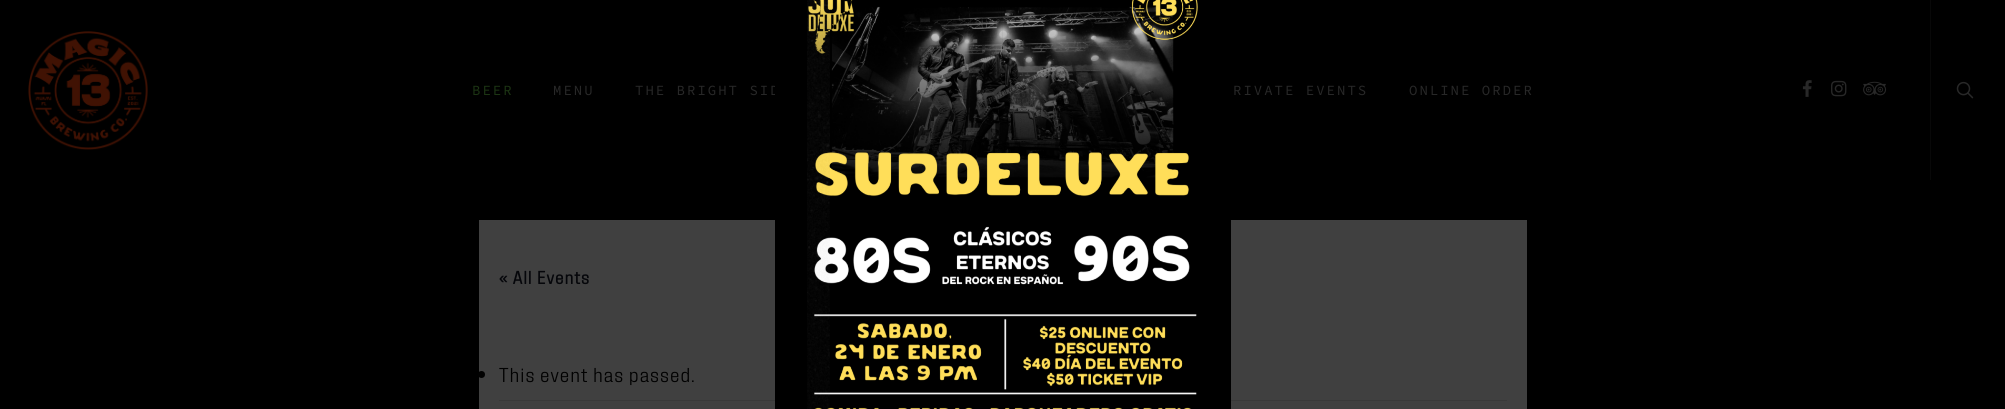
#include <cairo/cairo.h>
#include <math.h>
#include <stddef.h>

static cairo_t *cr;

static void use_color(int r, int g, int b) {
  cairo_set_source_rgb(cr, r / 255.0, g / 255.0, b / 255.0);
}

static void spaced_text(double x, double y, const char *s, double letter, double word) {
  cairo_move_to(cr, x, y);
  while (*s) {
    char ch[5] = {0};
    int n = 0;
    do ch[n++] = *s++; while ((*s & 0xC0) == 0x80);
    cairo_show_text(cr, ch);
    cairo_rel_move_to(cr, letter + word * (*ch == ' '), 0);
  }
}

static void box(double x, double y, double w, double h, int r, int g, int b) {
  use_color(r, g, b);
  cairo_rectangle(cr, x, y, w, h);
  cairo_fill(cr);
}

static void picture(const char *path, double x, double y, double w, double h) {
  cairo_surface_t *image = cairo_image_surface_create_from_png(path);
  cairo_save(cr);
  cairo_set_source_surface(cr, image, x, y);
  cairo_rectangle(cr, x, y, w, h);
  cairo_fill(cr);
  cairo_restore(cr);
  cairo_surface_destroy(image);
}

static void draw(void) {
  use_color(0, 0, 0);
  cairo_paint(cr);
  picture("img_02.png", 28, 31, 120, 119);
  picture("img_03.png", 1802, 80, 10, 17);
  picture("img_04.png", 1831, 80, 16, 17);
  picture("img_05.png", 1863, 81, 24, 15);
  box(1930, 0, 1, 180, 8, 8, 8);
  picture("img_06.png", 1956, 81, 18, 18);
  box(479, 220, 1048, 189, 64, 64, 64);
  box(499, 400, 1008, 1, 57, 57, 57);
  use_color(1, 1, 1);
  cairo_arc(cr, 481.5, 374.5, 3.5, 0, 2 * M_PI);
  cairo_fill(cr);
  cairo_select_font_face(cr, "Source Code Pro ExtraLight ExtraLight", CAIRO_FONT_SLANT_NORMAL, CAIRO_FONT_WEIGHT_NORMAL);
  cairo_set_font_size(cr, 14);
  use_color(28, 53, 19);
  spaced_text(472, 95, "BEER", 2, 0);
  use_color(40, 40, 40);
  spaced_text(553, 95, "MENU", 2, 0);
  spaced_text(635, 95, "THE BRIGHT SID", 2, 0);
  box(775, 86, 456, 323, 0, 0, 0);
  picture("img_01.png", 807, 0, 391, 409);
  use_color(40, 40, 40);
  spaced_text(1233, 95, "RIVATE EVENTS", 2, 0);
  spaced_text(1409, 95, "ONLINE ORDER", 2, 0);
  cairo_select_font_face(cr, "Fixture", CAIRO_FONT_SLANT_NORMAL, CAIRO_FONT_WEIGHT_BOLD);
  cairo_set_font_size(cr, 18);
  use_color(5, 6, 10);
  spaced_text(499, 284, "« All Events", 1, 0);
  cairo_select_font_face(cr, "Fixture Light", CAIRO_FONT_SLANT_NORMAL, CAIRO_FONT_WEIGHT_NORMAL);
  cairo_set_font_size(cr, 20);
  use_color(1, 1, 1);
  spaced_text(499, 382, "This event has passed.", 1, 0);
}

int main(void) {
  cairo_surface_t *surface = cairo_image_surface_create(CAIRO_FORMAT_RGB24, 2005, 409);
  cr = cairo_create(surface);
  cairo_font_options_t *options = cairo_font_options_create();
  cairo_font_options_set_hint_metrics(options, CAIRO_HINT_METRICS_OFF);
  cairo_font_options_set_hint_style(options, CAIRO_HINT_STYLE_NONE);
  cairo_set_font_options(cr, options);
  cairo_set_miter_limit(cr, 4);
  draw();
  cairo_surface_write_to_png(surface, "out.png");
  cairo_font_options_destroy(options);
  cairo_destroy(cr);
  cairo_surface_destroy(surface);
  return 0;
}
